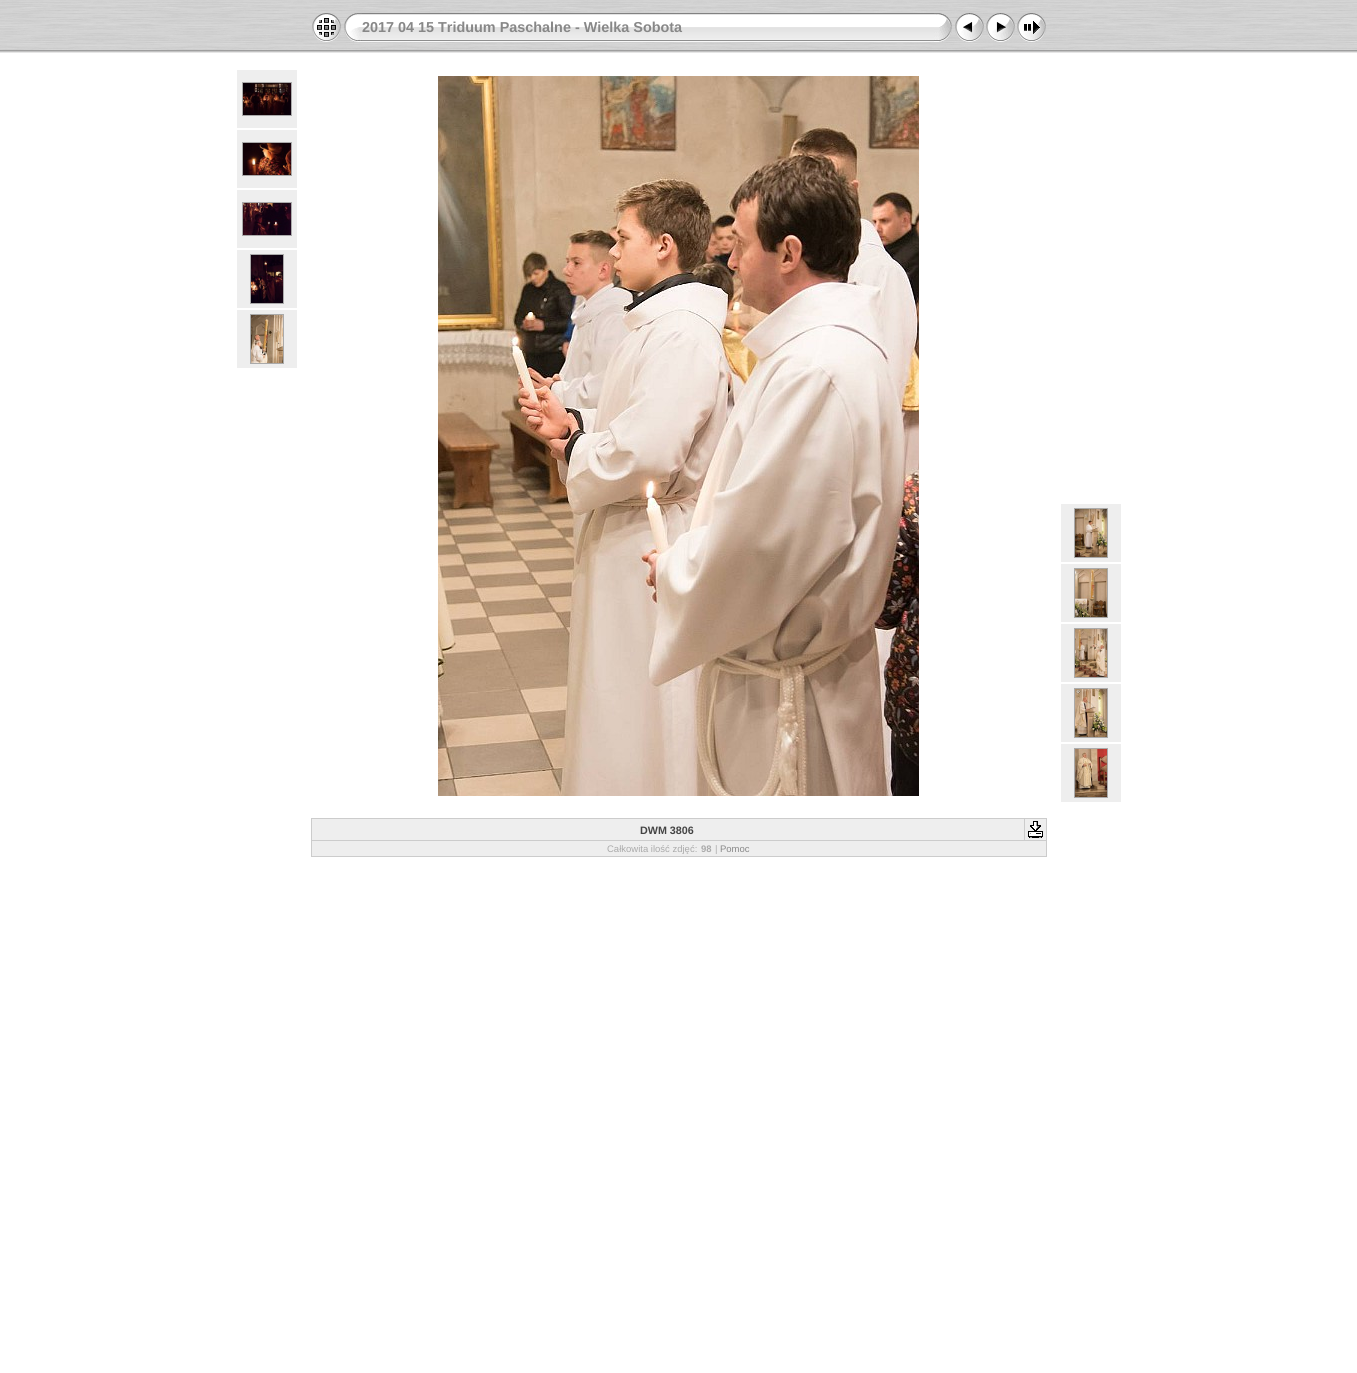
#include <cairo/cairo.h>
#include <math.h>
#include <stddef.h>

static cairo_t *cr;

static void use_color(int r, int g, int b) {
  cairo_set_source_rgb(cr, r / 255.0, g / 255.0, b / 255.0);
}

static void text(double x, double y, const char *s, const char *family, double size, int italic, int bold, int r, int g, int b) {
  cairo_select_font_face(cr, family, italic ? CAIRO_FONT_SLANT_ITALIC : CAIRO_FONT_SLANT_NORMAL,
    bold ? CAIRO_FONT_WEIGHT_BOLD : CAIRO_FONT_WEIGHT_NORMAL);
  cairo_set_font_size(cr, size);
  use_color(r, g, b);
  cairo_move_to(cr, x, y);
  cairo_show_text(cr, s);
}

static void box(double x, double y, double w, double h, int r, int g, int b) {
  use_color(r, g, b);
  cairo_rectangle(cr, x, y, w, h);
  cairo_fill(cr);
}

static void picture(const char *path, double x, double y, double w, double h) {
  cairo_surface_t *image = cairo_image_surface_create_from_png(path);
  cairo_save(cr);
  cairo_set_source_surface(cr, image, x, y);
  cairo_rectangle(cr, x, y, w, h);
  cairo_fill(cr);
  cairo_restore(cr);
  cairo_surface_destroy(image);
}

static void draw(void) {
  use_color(255, 255, 255);
  cairo_paint(cr);
  picture("img_01.png", 0, 0, 1357, 53);
  picture("img_02.png", 312, 13, 29, 29);
  picture("img_03.png", 344, 13, 18, 29);
  picture("img_04.png", 362, 13, 572, 29);
  picture("img_05.png", 934, 13, 18, 29);
  picture("img_06.png", 955, 13, 29, 29);
  picture("img_07.png", 986, 13, 29, 29);
  picture("img_08.png", 1017, 13, 29, 29);
  box(237, 70, 60, 58, 238, 238, 238);
  cairo_rectangle(cr, 242.5, 82.5, 49, 33);
  use_color(170, 170, 170);
  cairo_set_line_width(cr, 1);
  cairo_stroke(cr);
  picture("img_09.png", 243, 83, 48, 32);
  box(237, 130, 60, 58, 238, 238, 238);
  cairo_rectangle(cr, 242.5, 142.5, 49, 33);
  use_color(170, 170, 170);
  cairo_stroke(cr);
  picture("img_10.png", 243, 143, 48, 32);
  box(237, 190, 60, 58, 238, 238, 238);
  cairo_rectangle(cr, 242.5, 202.5, 49, 33);
  use_color(170, 170, 170);
  cairo_stroke(cr);
  picture("img_11.png", 243, 203, 48, 32);
  box(237, 250, 60, 58, 238, 238, 238);
  cairo_rectangle(cr, 250.5, 254.5, 33, 49);
  use_color(170, 170, 170);
  cairo_stroke(cr);
  picture("img_12.png", 251, 255, 32, 48);
  box(237, 310, 60, 58, 238, 238, 238);
  cairo_rectangle(cr, 250.5, 314.5, 33, 49);
  use_color(170, 170, 170);
  cairo_stroke(cr);
  picture("img_13.png", 251, 315, 32, 48);
  picture("img_14.png", 438, 76, 481, 720);
  box(1061, 504, 60, 58, 238, 238, 238);
  cairo_rectangle(cr, 1074.5, 508.5, 33, 49);
  use_color(170, 170, 170);
  cairo_stroke(cr);
  picture("img_15.png", 1075, 509, 32, 48);
  box(1061, 564, 60, 58, 238, 238, 238);
  cairo_rectangle(cr, 1074.5, 568.5, 33, 49);
  use_color(170, 170, 170);
  cairo_stroke(cr);
  picture("img_16.png", 1075, 569, 32, 48);
  box(1061, 624, 60, 58, 238, 238, 238);
  cairo_rectangle(cr, 1074.5, 628.5, 33, 49);
  use_color(170, 170, 170);
  cairo_stroke(cr);
  picture("img_17.png", 1075, 629, 32, 48);
  box(1061, 684, 60, 58, 238, 238, 238);
  cairo_rectangle(cr, 1074.5, 688.5, 33, 49);
  use_color(170, 170, 170);
  cairo_stroke(cr);
  picture("img_18.png", 1075, 689, 32, 48);
  box(1061, 744, 60, 58, 238, 238, 238);
  cairo_rectangle(cr, 1074.5, 748.5, 33, 49);
  use_color(170, 170, 170);
  cairo_stroke(cr);
  picture("img_19.png", 1075, 749, 32, 48);
  box(312, 819, 734, 37, 238, 238, 238);
  box(311, 818, 736, 1, 204, 204, 204);
  box(1046, 818, 1, 39, 204, 204, 204);
  box(311, 856, 736, 1, 204, 204, 204);
  box(311, 818, 1, 39, 204, 204, 204);
  box(311, 840, 736, 1, 204, 204, 204);
  box(1024, 818, 1, 23, 204, 204, 204);
  picture("img_20.png", 1028, 821, 15, 17);
  text(362, 32, "2017 04 15 Triduum Paschalne - Wielka Sobota", "Liberation Sans", 14.4, 0, 1, 136, 136, 136);
  text(640, 834, "DWM 3806", "Liberation Sans", 10.75, 0, 1, 68, 68, 68);
  text(607, 852, "Całkowita ilość zdjęć:", "Liberation Sans", 9.5, 0, 0, 170, 170, 170);
  text(701, 852, "98", "Liberation Sans", 9.5, 0, 1, 170, 170, 170);
  text(715, 852, "|", "Liberation Sans", 9.5, 0, 0, 170, 170, 170);
  text(720, 852, "Pomoc", "Liberation Sans", 9.5, 0, 0, 136, 136, 136);
}

int main(void) {
  cairo_surface_t *surface = cairo_image_surface_create(CAIRO_FORMAT_RGB24, 1357, 1373);
  cr = cairo_create(surface);
  cairo_font_options_t *options = cairo_font_options_create();
  cairo_font_options_set_hint_metrics(options, CAIRO_HINT_METRICS_OFF);
  cairo_font_options_set_hint_style(options, CAIRO_HINT_STYLE_NONE);
  cairo_set_font_options(cr, options);
  cairo_set_miter_limit(cr, 4);
  draw();
  cairo_surface_write_to_png(surface, "out.png");
  cairo_font_options_destroy(options);
  cairo_destroy(cr);
  cairo_surface_destroy(surface);
  return 0;
}
